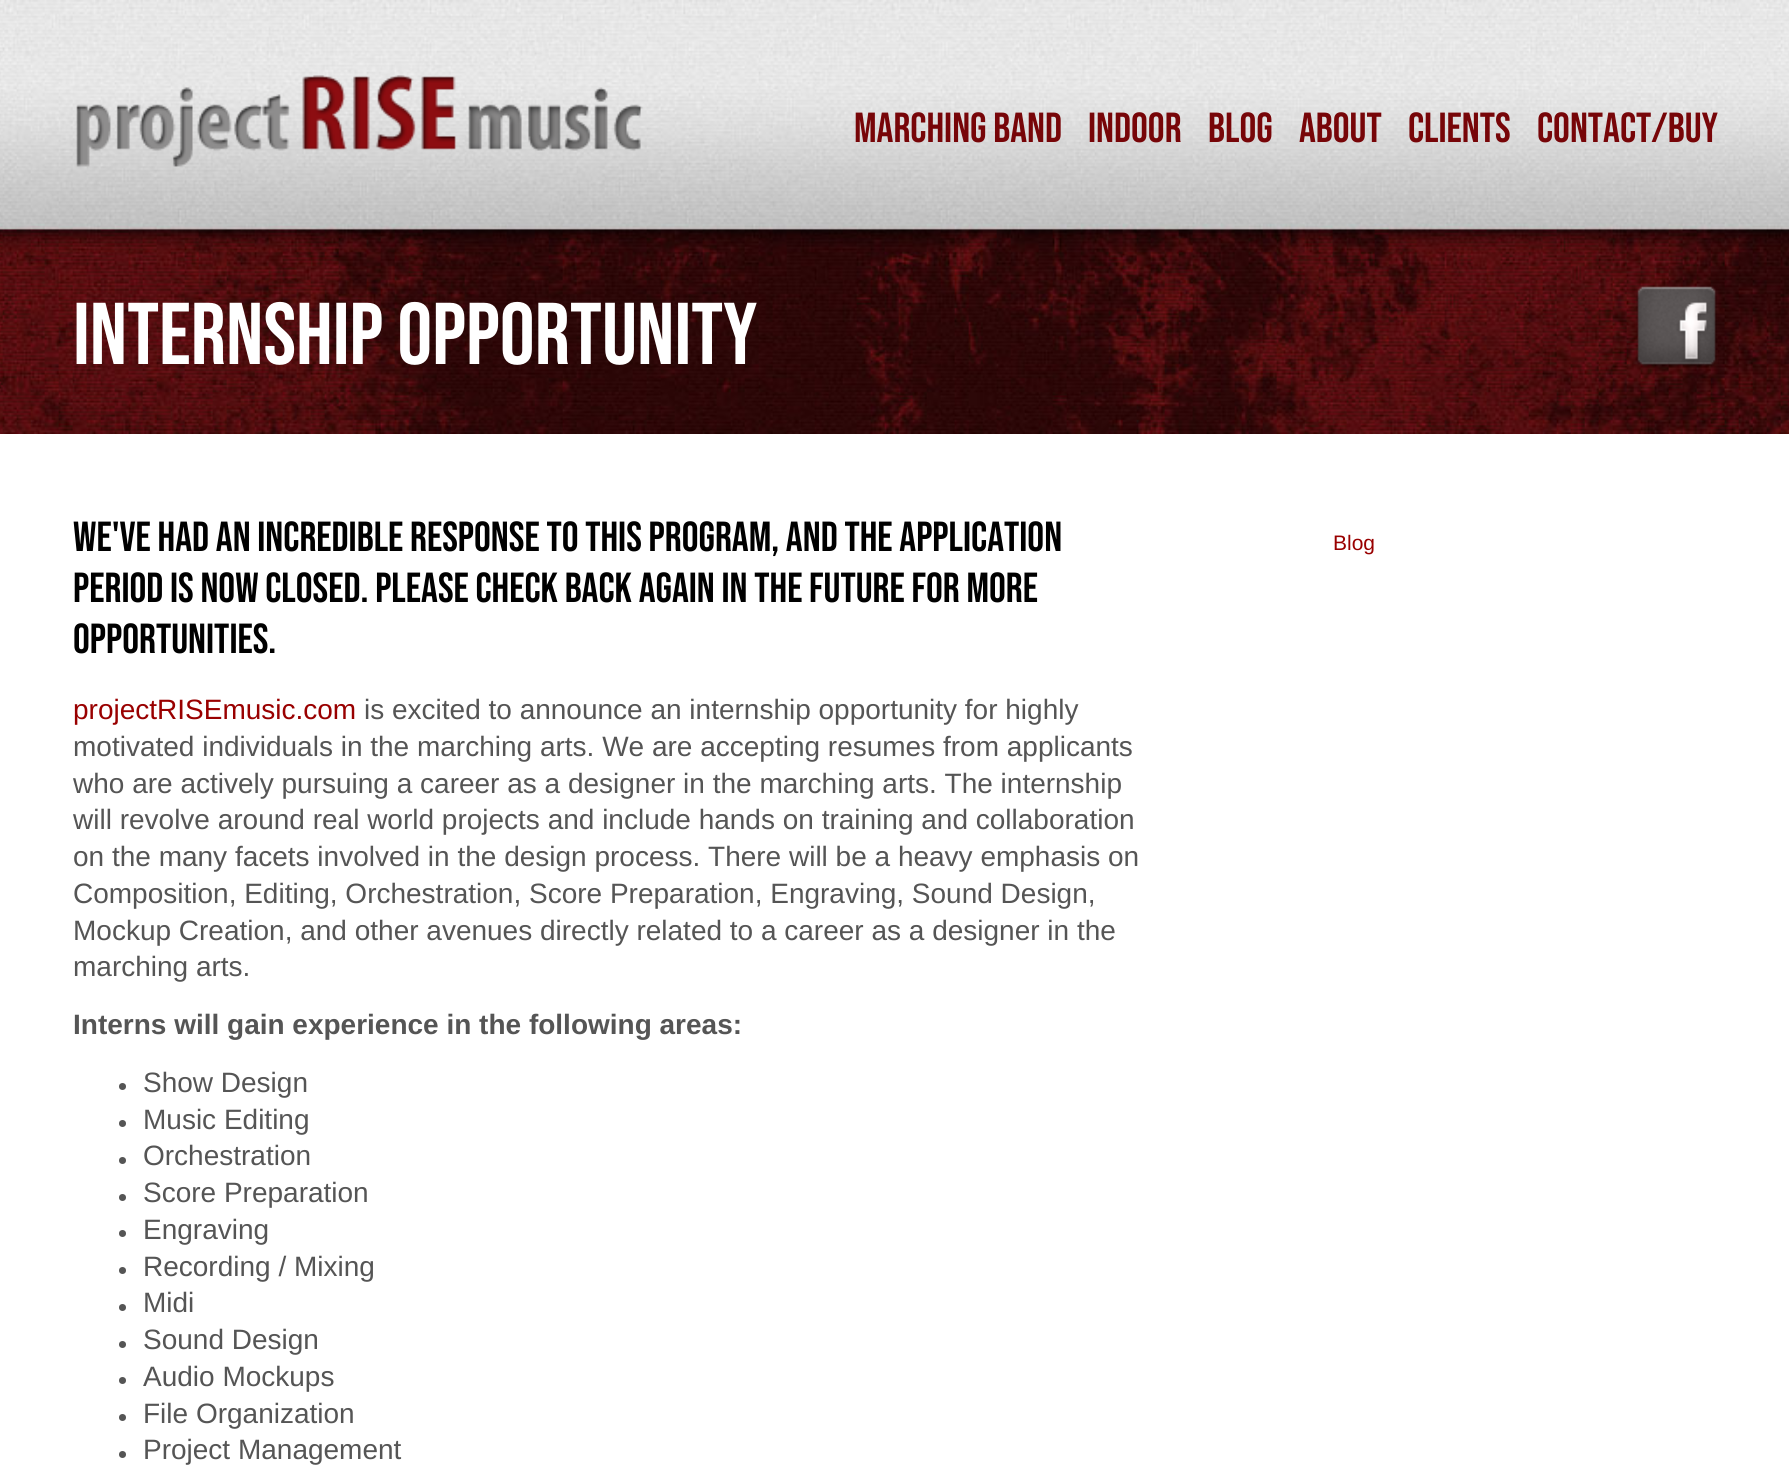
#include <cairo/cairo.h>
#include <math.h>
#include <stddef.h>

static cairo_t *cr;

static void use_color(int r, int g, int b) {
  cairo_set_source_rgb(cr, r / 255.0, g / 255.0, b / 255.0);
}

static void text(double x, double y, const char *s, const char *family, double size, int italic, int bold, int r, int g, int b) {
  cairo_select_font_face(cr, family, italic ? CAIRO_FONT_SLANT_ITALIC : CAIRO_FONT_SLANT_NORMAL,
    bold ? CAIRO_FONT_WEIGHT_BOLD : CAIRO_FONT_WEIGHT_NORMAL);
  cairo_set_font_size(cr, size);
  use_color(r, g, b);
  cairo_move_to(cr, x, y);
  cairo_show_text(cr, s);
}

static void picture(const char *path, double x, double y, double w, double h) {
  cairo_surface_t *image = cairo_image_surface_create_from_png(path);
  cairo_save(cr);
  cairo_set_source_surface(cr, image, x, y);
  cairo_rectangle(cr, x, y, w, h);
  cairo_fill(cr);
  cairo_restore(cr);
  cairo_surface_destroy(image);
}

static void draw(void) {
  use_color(255, 255, 255);
  cairo_paint(cr);
  picture("img_01.png", 0, 0, 1789, 434);
  picture("img_02.png", 76, 75, 567, 92);
  use_color(85, 85, 85);
  cairo_arc(cr, 122.5, 1086.5, 3.5, 0, 2 * M_PI);
  cairo_fill(cr);
  cairo_arc(cr, 122.5, 1123.5, 3.5, 0, 2 * M_PI);
  cairo_fill(cr);
  cairo_arc(cr, 122.5, 1160.5, 3.5, 0, 2 * M_PI);
  cairo_fill(cr);
  cairo_arc(cr, 122.5, 1197.5, 3.5, 0, 2 * M_PI);
  cairo_fill(cr);
  cairo_arc(cr, 122.5, 1233.5, 3.5, 0, 2 * M_PI);
  cairo_fill(cr);
  cairo_arc(cr, 122.5, 1270.5, 3.5, 0, 2 * M_PI);
  cairo_fill(cr);
  cairo_arc(cr, 122.5, 1307.5, 3.5, 0, 2 * M_PI);
  cairo_fill(cr);
  cairo_arc(cr, 122.5, 1344.5, 3.5, 0, 2 * M_PI);
  cairo_fill(cr);
  cairo_arc(cr, 122.5, 1380.5, 3.5, 0, 2 * M_PI);
  cairo_fill(cr);
  cairo_arc(cr, 122.5, 1417.5, 3.5, 0, 2 * M_PI);
  cairo_fill(cr);
  cairo_arc(cr, 122.5, 1454.5, 3.5, 0, 2 * M_PI);
  cairo_fill(cr);
  picture("img_03.png", 1636, 286, 81, 82);
  text(854, 142, "MARCHING BAND", "Bebas Neue", 42, 0, 0, 119, 5, 8);
  text(1088, 142, "INDOOR", "Bebas Neue", 42, 0, 0, 119, 5, 8);
  text(1208, 142, "BLOG", "Bebas Neue", 42, 0, 0, 119, 5, 8);
  text(1299, 142, "ABOUT", "Bebas Neue", 42, 0, 0, 119, 5, 8);
  text(1408, 142, "CLIENTS", "Bebas Neue", 42, 0, 0, 119, 5, 8);
  text(1537, 142, "CONTACT/BUY", "Bebas Neue", 42, 0, 0, 119, 5, 8);
  text(73, 364, "INTERNSHIP OPPORTUNITY", "Bebas Neue", 87.5, 0, 0, 255, 255, 255);
  text(73, 551, "We've had an incredible response to this program, and the application", "Bebas Neue", 42, 0, 0, 0, 0, 0);
  text(73, 602, "period is now closed. Please check back again in the future for more", "Bebas Neue", 42, 0, 0, 0, 0, 0);
  text(73, 653, "opportunities.", "Bebas Neue", 42, 0, 0, 0, 0, 0);
  text(73, 719, "projectRISEmusic.com", "Liberation Sans", 28, 0, 0, 153, 0, 0);
  text(364, 719, "is excited to announce an internship opportunity for highly", "Liberation Sans", 28, 0, 0, 85, 85, 85);
  text(73, 756, "motivated individuals in the marching arts. We are accepting resumes from applicants", "Liberation Sans", 28, 0, 0, 85, 85, 85);
  text(73, 793, "who are actively pursuing a career as a designer in the marching arts. The internship", "Liberation Sans", 28, 0, 0, 85, 85, 85);
  text(73, 829, "will revolve around real world projects and include hands on training and collaboration", "Liberation Sans", 28, 0, 0, 85, 85, 85);
  text(73, 866, "on the many facets involved in the design process. There will be a heavy emphasis on", "Liberation Sans", 28, 0, 0, 85, 85, 85);
  text(73, 903, "Composition, Editing, Orchestration, Score Preparation, Engraving, Sound Design,", "Liberation Sans", 28, 0, 0, 85, 85, 85);
  text(73, 940, "Mockup Creation, and other avenues directly related to a career as a designer in the", "Liberation Sans", 28, 0, 0, 85, 85, 85);
  text(73, 976, "marching arts.", "Liberation Sans", 28, 0, 0, 85, 85, 85);
  text(73, 1034, "Interns will gain experience in the following areas:", "Liberation Sans", 28, 0, 1, 85, 85, 85);
  text(143, 1092, "Show Design", "Liberation Sans", 28, 0, 0, 85, 85, 85);
  text(143, 1129, "Music Editing", "Liberation Sans", 28, 0, 0, 85, 85, 85);
  text(143, 1165, "Orchestration", "Liberation Sans", 28, 0, 0, 85, 85, 85);
  text(143, 1202, "Score Preparation", "Liberation Sans", 28, 0, 0, 85, 85, 85);
  text(143, 1239, "Engraving", "Liberation Sans", 28, 0, 0, 85, 85, 85);
  text(143, 1276, "Recording / Mixing", "Liberation Sans", 28, 0, 0, 85, 85, 85);
  text(143, 1312, "Midi", "Liberation Sans", 28, 0, 0, 85, 85, 85);
  text(143, 1349, "Sound Design", "Liberation Sans", 28, 0, 0, 85, 85, 85);
  text(143, 1386, "Audio Mockups", "Liberation Sans", 28, 0, 0, 85, 85, 85);
  text(143, 1423, "File Organization", "Liberation Sans", 28, 0, 0, 85, 85, 85);
  text(143, 1459, "Project Management", "Liberation Sans", 28, 0, 0, 85, 85, 85);
  text(1333, 550, "Blog", "Liberation Sans", 21, 0, 0, 153, 0, 0);
}

int main(void) {
  cairo_surface_t *surface = cairo_image_surface_create(CAIRO_FORMAT_RGB24, 1789, 1472);
  cr = cairo_create(surface);
  cairo_font_options_t *options = cairo_font_options_create();
  cairo_font_options_set_hint_metrics(options, CAIRO_HINT_METRICS_OFF);
  cairo_font_options_set_hint_style(options, CAIRO_HINT_STYLE_NONE);
  cairo_set_font_options(cr, options);
  cairo_set_miter_limit(cr, 4);
  draw();
  cairo_surface_write_to_png(surface, "out.png");
  cairo_font_options_destroy(options);
  cairo_destroy(cr);
  cairo_surface_destroy(surface);
  return 0;
}
